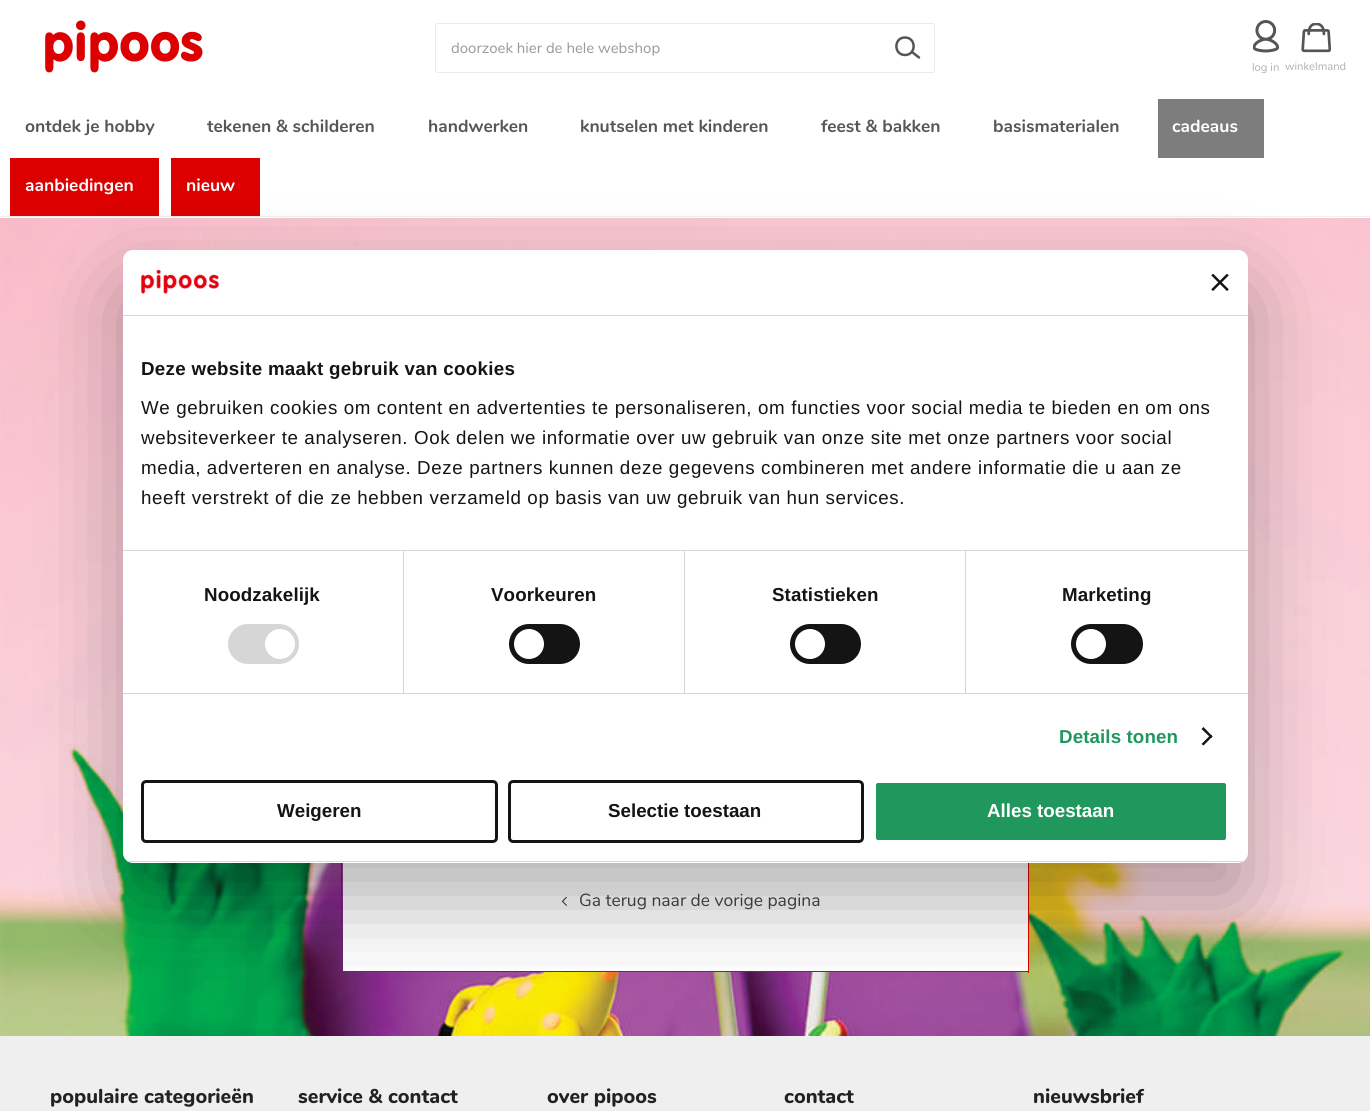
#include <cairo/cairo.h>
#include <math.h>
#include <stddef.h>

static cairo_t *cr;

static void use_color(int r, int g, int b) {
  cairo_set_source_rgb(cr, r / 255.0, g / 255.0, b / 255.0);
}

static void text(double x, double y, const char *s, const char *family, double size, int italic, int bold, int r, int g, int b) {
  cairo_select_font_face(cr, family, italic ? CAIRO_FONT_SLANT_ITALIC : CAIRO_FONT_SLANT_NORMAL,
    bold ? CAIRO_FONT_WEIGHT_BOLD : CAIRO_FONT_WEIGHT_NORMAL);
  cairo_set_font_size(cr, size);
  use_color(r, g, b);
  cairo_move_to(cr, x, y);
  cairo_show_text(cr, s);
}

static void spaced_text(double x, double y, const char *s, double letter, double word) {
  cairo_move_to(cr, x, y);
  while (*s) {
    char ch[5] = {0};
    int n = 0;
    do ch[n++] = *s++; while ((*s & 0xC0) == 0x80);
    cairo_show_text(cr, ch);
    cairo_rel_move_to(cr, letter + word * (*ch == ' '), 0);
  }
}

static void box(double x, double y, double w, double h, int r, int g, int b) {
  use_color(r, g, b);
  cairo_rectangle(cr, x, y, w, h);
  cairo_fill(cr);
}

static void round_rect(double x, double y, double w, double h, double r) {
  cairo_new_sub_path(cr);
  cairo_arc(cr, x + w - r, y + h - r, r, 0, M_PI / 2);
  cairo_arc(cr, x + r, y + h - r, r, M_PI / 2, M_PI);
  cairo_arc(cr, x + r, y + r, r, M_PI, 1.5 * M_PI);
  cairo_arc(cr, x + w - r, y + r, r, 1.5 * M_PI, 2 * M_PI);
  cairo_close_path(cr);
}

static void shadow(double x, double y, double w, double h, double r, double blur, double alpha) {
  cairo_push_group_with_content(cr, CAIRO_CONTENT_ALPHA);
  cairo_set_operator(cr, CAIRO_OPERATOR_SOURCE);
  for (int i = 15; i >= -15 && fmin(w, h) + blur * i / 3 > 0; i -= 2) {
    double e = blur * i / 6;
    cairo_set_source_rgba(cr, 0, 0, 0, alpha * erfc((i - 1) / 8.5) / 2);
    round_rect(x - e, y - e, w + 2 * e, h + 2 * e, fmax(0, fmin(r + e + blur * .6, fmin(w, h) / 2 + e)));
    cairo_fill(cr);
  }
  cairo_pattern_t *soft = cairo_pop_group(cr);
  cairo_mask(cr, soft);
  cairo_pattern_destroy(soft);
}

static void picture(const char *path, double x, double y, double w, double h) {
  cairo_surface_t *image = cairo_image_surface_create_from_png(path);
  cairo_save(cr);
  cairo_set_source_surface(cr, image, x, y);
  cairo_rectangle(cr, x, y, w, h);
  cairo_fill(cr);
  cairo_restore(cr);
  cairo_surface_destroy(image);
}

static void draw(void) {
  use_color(255, 255, 255);
  cairo_paint(cr);
  box(0, 216, 1370, 1, 239, 239, 239);
  picture("img_01.png", 45, 20, 158, 53);
  round_rect(435.5, 23.5, 499, 49, 2);
  use_color(235, 235, 235);
  cairo_set_line_width(cr, 1);
  cairo_stroke(cr);
  cairo_new_path(cr);
  cairo_move_to(cr, 905, 55);
  cairo_curve_to(cr, 916.5, 55, 916.5, 37.5, 905, 37.5);
  cairo_curve_to(cr, 893.5, 37.5, 893.5, 55, 905, 55);
  cairo_close_path(cr);
  cairo_move_to(cr, 912, 52);
  cairo_line_to(cr, 919, 57.5);
  use_color(85, 85, 85);
  cairo_set_line_width(cr, 2.5);
  cairo_set_line_cap(cr, CAIRO_LINE_CAP_ROUND);
  cairo_set_line_join(cr, CAIRO_LINE_JOIN_ROUND);
  cairo_stroke(cr);
  picture("img_02.png", 1253, 20, 26, 33);
  picture("img_03.png", 1301, 23, 30, 30);
  box(1158, 99, 106, 59, 125, 125, 125);
  box(10, 158, 149, 58, 220, 0, 0);
  box(171, 158, 89, 58, 220, 0, 0);
  picture("img_06.png", 0, 218, 1370, 818);
  box(343, 863, 685, 108, 255, 255, 255);
  box(1028, 863, 1, 110, 220, 0, 0);
  box(341, 971, 688, 1, 220, 0, 0);
  box(341, 863, 1, 110, 220, 0, 0);
  picture("img_07.png", 561, 896, 6, 10);
  use_color(0, 0, 0);
  shadow(123, 290, 1125, 613, 10, 42.5, 0.3);
  use_color(255, 255, 255);
  round_rect(123, 250, 1125, 613, 10);
  cairo_fill(cr);
  box(123, 315, 1125, 1, 214, 214, 214);
  picture("img_04.png", 141, 269, 78, 25);
  picture("img_05.png", 1211, 274, 18, 17);
  box(123, 550, 1125, 1, 214, 214, 214);
  box(123, 693, 1125, 1, 214, 214, 214);
  box(403, 551, 1, 142, 214, 214, 214);
  round_rect(228, 624, 71, 40, 20);
  cairo_fill(cr);
  use_color(255, 255, 255);
  cairo_arc(cr, 280, 644, 15, 0, 2 * M_PI);
  cairo_fill(cr);
  box(684, 551, 1, 142, 214, 214, 214);
  use_color(20, 20, 20);
  round_rect(509, 624, 71, 40, 20);
  cairo_fill(cr);
  use_color(255, 255, 255);
  cairo_arc(cr, 529, 644, 15, 0, 2 * M_PI);
  cairo_fill(cr);
  box(965, 551, 1, 142, 214, 214, 214);
  use_color(20, 20, 20);
  round_rect(790, 624, 71, 40, 20);
  cairo_fill(cr);
  use_color(255, 255, 255);
  cairo_arc(cr, 810, 644, 15, 0, 2 * M_PI);
  cairo_fill(cr);
  use_color(20, 20, 20);
  round_rect(1071, 624, 72, 40, 20);
  cairo_fill(cr);
  use_color(255, 255, 255);
  cairo_arc(cr, 1091, 644, 15, 0, 2 * M_PI);
  cairo_fill(cr);
  use_color(20, 20, 20);
  cairo_new_path(cr);
  cairo_move_to(cr, 1203.5, 727);
  cairo_line_to(cr, 1212.5, 736.5);
  cairo_line_to(cr, 1211, 738);
  cairo_line_to(cr, 1201.5, 729);
  cairo_close_path(cr);
  cairo_fill(cr);
  cairo_new_path(cr);
  cairo_move_to(cr, 1211, 734.5);
  cairo_line_to(cr, 1212.5, 736.5);
  cairo_line_to(cr, 1203.5, 745.5);
  cairo_line_to(cr, 1201.5, 744);
  cairo_close_path(cr);
  cairo_fill(cr);
  cairo_save(cr);
  round_rect(123, 250, 1125, 613, 10);
  cairo_clip(cr);
  box(123, 861, 1125, 1, 214, 214, 214);
  cairo_restore(cr);
  round_rect(142.5, 781.5, 354, 60, 3.5);
  cairo_set_line_width(cr, 3);
  cairo_set_line_cap(cr, CAIRO_LINE_CAP_BUTT);
  cairo_set_line_join(cr, CAIRO_LINE_JOIN_MITER);
  cairo_stroke(cr);
  round_rect(509.5, 781.5, 353, 60, 3.5);
  cairo_stroke(cr);
  use_color(32, 151, 93);
  round_rect(874.5, 781.5, 353, 60, 3.5);
  cairo_fill_preserve(cr);
  use_color(255, 255, 255);
  cairo_stroke(cr);
  box(0, 1036, 1370, 75, 239, 239, 239);
  text(451, 53, "doorzoek hier de hele webshop", "Nunito", 15, 0, 0, 153, 153, 153);
  text(1252, 71, "log in", "Nunito", 11.25, 0, 0, 176, 176, 176);
  text(1285, 70, "winkelmand", "Nunito", 11.25, 0, 0, 176, 176, 176);
  text(25, 132, "ontdek je hobby", "Nunito", 17.5, 0, 1, 87, 87, 87);
  text(207, 132, "tekenen & schilderen", "Nunito", 17.5, 0, 1, 87, 87, 87);
  text(428, 132, "handwerken", "Nunito", 17.5, 0, 1, 87, 87, 87);
  text(580, 132, "knutselen met kinderen", "Nunito", 17.5, 0, 1, 87, 87, 87);
  text(821, 132, "feest & bakken", "Nunito", 17.5, 0, 1, 87, 87, 87);
  text(993, 132, "basismaterialen", "Nunito", 17.5, 0, 1, 87, 87, 87);
  text(1172, 132, "cadeaus", "Nunito", 17.5, 0, 1, 255, 255, 255);
  text(25, 191, "aanbiedingen", "Nunito", 17.5, 0, 1, 255, 255, 255);
  text(186, 191, "nieuw", "Nunito", 17.5, 0, 1, 255, 255, 255);
  cairo_select_font_face(cr, "Liberation Sans", CAIRO_FONT_SLANT_NORMAL, CAIRO_FONT_WEIGHT_BOLD);
  cairo_set_font_size(cr, 18.75);
  use_color(20, 20, 20);
  spaced_text(141, 375, "Deze website maakt gebruik van cookies", 0.3, 0);
  cairo_select_font_face(cr, "Liberation Sans", CAIRO_FONT_SLANT_NORMAL, CAIRO_FONT_WEIGHT_NORMAL);
  spaced_text(141, 414, "We gebruiken cookies om content en advertenties te personaliseren, om functies voor social media te bieden en om ons", 0.62, 0);
  spaced_text(141, 444, "websiteverkeer te analyseren. Ook delen we informatie over uw gebruik van onze site met onze partners voor social", 0.62, 0);
  spaced_text(141, 474, "media, adverteren en analyse. Deze partners kunnen deze gegevens combineren met andere informatie die u aan ze", 0.62, 0);
  spaced_text(141, 504, "heeft verstrekt of die ze hebben verzameld op basis van uw gebruik van hun services.", 0.62, 0);
  cairo_select_font_face(cr, "Liberation Sans", CAIRO_FONT_SLANT_NORMAL, CAIRO_FONT_WEIGHT_BOLD);
  spaced_text(204, 601, "Noodzakelijk", 0.1, 0);
  spaced_text(491, 601, "Voorkeuren", 0.1, 0);
  spaced_text(772, 601, "Statistieken", 0.1, 0);
  spaced_text(1062, 601, "Marketing", 0.1, 0);
  use_color(32, 151, 93);
  spaced_text(1059, 743, "Details tonen", 0.1, 0);
  text(277, 817, "Weigeren", "Liberation Sans", 18.75, 0, 1, 20, 20, 20);
  text(608, 817, "Selectie toestaan", "Liberation Sans", 18.75, 0, 1, 20, 20, 20);
  text(987, 817, "Alles toestaan", "Liberation Sans", 18.75, 0, 1, 255, 255, 255);
  text(579, 906, "Ga terug naar de vorige pagina", "Nunito", 17.5, 0, 0, 58, 58, 58);
  text(50, 1103, "populaire categorieën", "Nunito ExtraBold", 20, 0, 0, 34, 34, 34);
  text(298, 1103, "service & contact", "Nunito ExtraBold", 20, 0, 0, 34, 34, 34);
  text(547, 1103, "over pipoos", "Nunito ExtraBold", 20, 0, 0, 34, 34, 34);
  text(784, 1103, "contact", "Nunito ExtraBold", 20, 0, 0, 34, 34, 34);
  text(1033, 1103, "nieuwsbrief", "Nunito ExtraBold", 20, 0, 0, 34, 34, 34);
}

int main(void) {
  cairo_surface_t *surface = cairo_image_surface_create(CAIRO_FORMAT_RGB24, 1370, 1111);
  cr = cairo_create(surface);
  cairo_font_options_t *options = cairo_font_options_create();
  cairo_font_options_set_hint_metrics(options, CAIRO_HINT_METRICS_OFF);
  cairo_font_options_set_hint_style(options, CAIRO_HINT_STYLE_NONE);
  cairo_set_font_options(cr, options);
  cairo_set_miter_limit(cr, 4);
  draw();
  cairo_surface_write_to_png(surface, "out.png");
  cairo_font_options_destroy(options);
  cairo_destroy(cr);
  cairo_surface_destroy(surface);
  return 0;
}
